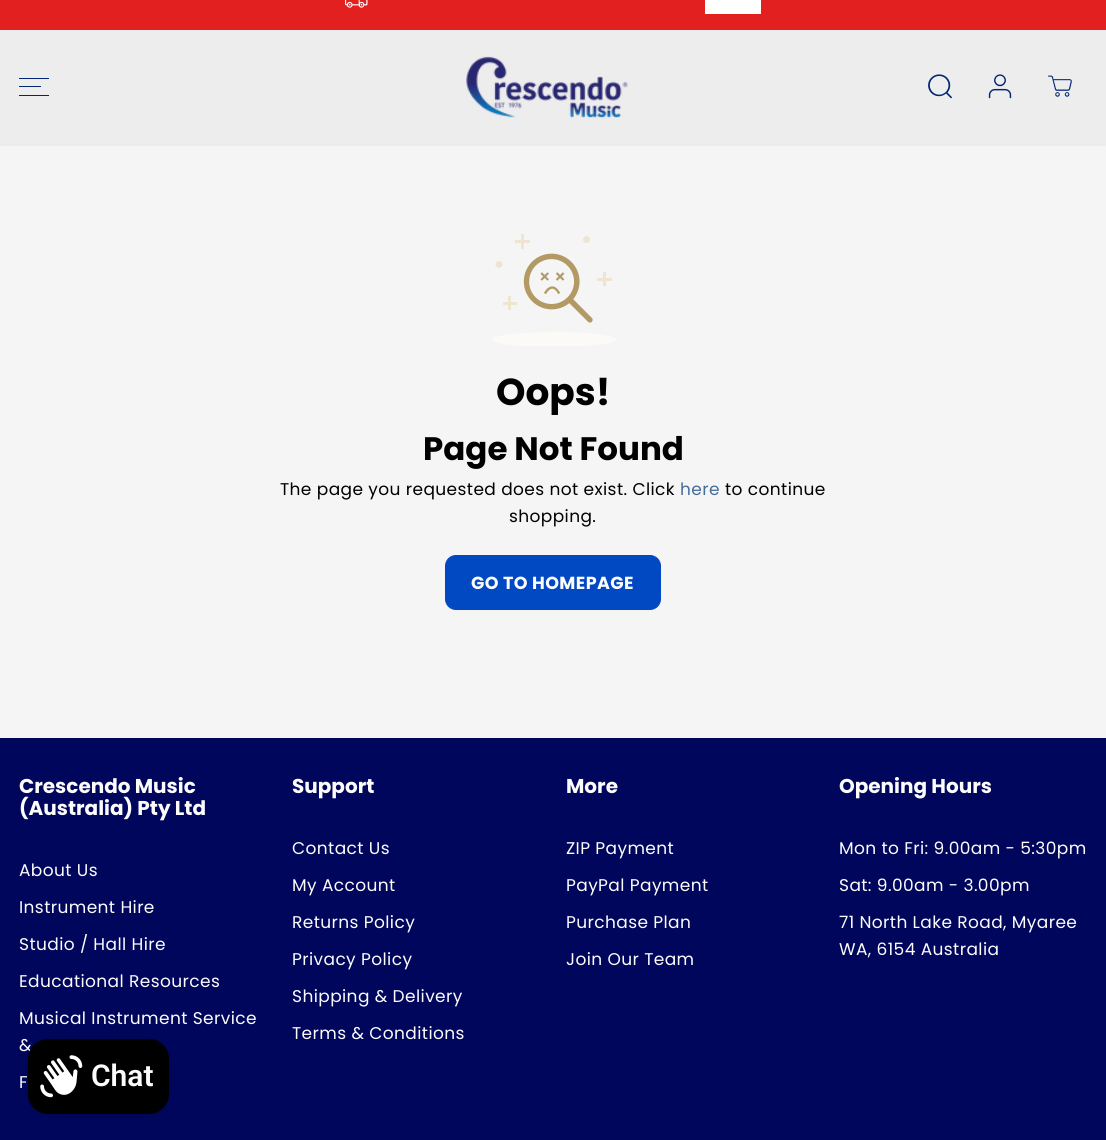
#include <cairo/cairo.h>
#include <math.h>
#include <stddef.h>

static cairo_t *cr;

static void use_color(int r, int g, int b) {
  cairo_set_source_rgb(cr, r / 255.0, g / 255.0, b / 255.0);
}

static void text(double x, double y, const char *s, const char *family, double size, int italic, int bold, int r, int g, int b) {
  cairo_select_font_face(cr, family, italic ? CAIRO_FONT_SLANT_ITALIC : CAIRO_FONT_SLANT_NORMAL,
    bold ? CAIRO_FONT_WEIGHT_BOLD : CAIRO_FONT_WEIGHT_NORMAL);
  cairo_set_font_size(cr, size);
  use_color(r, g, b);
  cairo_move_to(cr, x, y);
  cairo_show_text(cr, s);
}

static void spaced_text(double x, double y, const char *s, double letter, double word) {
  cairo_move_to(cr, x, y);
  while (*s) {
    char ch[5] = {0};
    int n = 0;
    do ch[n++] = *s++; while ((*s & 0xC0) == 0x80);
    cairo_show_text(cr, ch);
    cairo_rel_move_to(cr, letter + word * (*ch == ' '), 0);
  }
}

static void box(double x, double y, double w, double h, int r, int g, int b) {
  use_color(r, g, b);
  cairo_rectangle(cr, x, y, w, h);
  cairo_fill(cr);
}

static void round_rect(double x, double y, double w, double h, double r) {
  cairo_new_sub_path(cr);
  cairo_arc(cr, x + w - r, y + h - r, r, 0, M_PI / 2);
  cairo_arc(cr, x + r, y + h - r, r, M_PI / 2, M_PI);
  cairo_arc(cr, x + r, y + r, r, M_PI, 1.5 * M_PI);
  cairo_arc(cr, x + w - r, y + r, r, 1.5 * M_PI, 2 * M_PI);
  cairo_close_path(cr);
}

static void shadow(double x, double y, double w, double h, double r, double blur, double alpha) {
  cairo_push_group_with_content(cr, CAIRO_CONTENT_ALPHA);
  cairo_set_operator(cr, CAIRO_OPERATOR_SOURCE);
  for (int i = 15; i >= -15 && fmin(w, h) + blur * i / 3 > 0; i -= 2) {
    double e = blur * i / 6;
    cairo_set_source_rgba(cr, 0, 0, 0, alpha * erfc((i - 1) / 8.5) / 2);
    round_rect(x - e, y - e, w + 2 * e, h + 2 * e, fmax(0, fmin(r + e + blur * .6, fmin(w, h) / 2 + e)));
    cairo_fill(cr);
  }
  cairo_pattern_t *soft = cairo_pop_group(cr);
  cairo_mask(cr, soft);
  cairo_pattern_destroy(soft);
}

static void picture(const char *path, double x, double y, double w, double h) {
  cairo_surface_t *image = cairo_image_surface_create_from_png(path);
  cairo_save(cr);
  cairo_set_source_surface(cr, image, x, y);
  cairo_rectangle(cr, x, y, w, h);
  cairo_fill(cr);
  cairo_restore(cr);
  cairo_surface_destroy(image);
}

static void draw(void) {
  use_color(245, 245, 245);
  cairo_paint(cr);
  box(0, 0, 1106, 30, 226, 32, 32);
  picture("img_01.png", 345, 0, 23, 8);
  box(705, 0, 56, 14, 255, 255, 255);
  box(0, 30, 1106, 114, 237, 237, 237);
  cairo_save(cr);
  cairo_rectangle(cr, 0, 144, 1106, 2);
  cairo_clip(cr);
  use_color(0, 0, 0);
  shadow(0, 33, 1106, 113, 0, 1, 0.05);
  cairo_restore(cr);
  box(19, 86, 22, 1, 0, 37, 119);
  box(19, 78, 30, 1, 0, 37, 119);
  box(19, 95, 30, 1, 0, 37, 119);
  picture("img_02.png", 466, 56, 162, 62);
  picture("img_03.png", 928, 74, 24, 25);
  picture("img_04.png", 988, 74, 24, 25);
  picture("img_05.png", 1048, 75, 24, 22);
  picture("img_06.png", 492, 234, 124, 112);
  use_color(0, 73, 194);
  round_rect(445.5, 555.5, 215, 54, 10.5);
  cairo_fill_preserve(cr);
  cairo_set_line_width(cr, 1);
  cairo_stroke(cr);
  box(0, 738, 1106, 402, 0, 6, 91);
  use_color(0, 0, 0);
  shadow(28, 1039, 141, 75, 20, 3, 0.15);
  text(496, 405, "Oops!", "Poppins", 37.5, 0, 1, 0, 0, 0);
  text(423, 460, "Page Not Found", "Poppins", 32.5, 0, 1, 0, 0, 0);
  cairo_select_font_face(cr, "Poppins", CAIRO_FONT_SLANT_NORMAL, CAIRO_FONT_WEIGHT_NORMAL);
  cairo_set_font_size(cr, 17);
  spaced_text(280, 495, "The page you requested does not exist. Click", 0.4, 0);
  use_color(69, 109, 155);
  spaced_text(680, 495, "here", 0.4, 0);
  use_color(0, 0, 0);
  spaced_text(725, 495, "to continue", 0.4, 0);
  spaced_text(509, 522, "shopping.", 0.4, 0);
  cairo_select_font_face(cr, "Poppins", CAIRO_FONT_SLANT_NORMAL, CAIRO_FONT_WEIGHT_BOLD);
  cairo_set_font_size(cr, 17.5);
  use_color(252, 252, 252);
  spaced_text(471, 589, "GO TO HOMEPAGE", 0.4, 0);
  text(19, 793, "Crescendo Music", "Poppins", 20, 0, 1, 252, 252, 252);
  text(19, 815, "(Australia) Pty Ltd", "Poppins", 20, 0, 1, 252, 252, 252);
  cairo_select_font_face(cr, "Poppins", CAIRO_FONT_SLANT_NORMAL, CAIRO_FONT_WEIGHT_NORMAL);
  cairo_set_font_size(cr, 17);
  spaced_text(19, 876, "About Us", 0.4, 0);
  spaced_text(19, 913, "Instrument Hire", 0.4, 0);
  spaced_text(19, 950, "Studio / Hall Hire", 0.4, 0);
  spaced_text(19, 987, "Educational Resources", 0.4, 0);
  spaced_text(19, 1024, "Musical Instrument Service", 0.4, 0);
  spaced_text(19, 1051, "&", 0.4, 0);
  spaced_text(19, 1088, "F", 0.4, 0);
  text(292, 793, "Support", "Poppins", 20, 0, 1, 252, 252, 252);
  cairo_select_font_face(cr, "Poppins", CAIRO_FONT_SLANT_NORMAL, CAIRO_FONT_WEIGHT_NORMAL);
  cairo_set_font_size(cr, 17);
  spaced_text(292, 854, "Contact Us", 0.4, 0);
  spaced_text(292, 891, "My Account", 0.4, 0);
  spaced_text(292, 928, "Returns Policy", 0.4, 0);
  spaced_text(292, 965, "Privacy Policy", 0.4, 0);
  spaced_text(292, 1002, "Shipping & Delivery", 0.4, 0);
  spaced_text(292, 1039, "Terms & Conditions", 0.4, 0);
  text(566, 793, "More", "Poppins", 20, 0, 1, 252, 252, 252);
  cairo_select_font_face(cr, "Poppins", CAIRO_FONT_SLANT_NORMAL, CAIRO_FONT_WEIGHT_NORMAL);
  cairo_set_font_size(cr, 17);
  spaced_text(566, 854, "ZIP Payment", 0.4, 0);
  spaced_text(566, 891, "PayPal Payment", 0.4, 0);
  spaced_text(566, 928, "Purchase Plan", 0.4, 0);
  spaced_text(566, 965, "Join Our Team", 0.4, 0);
  text(839, 793, "Opening Hours", "Poppins", 20, 0, 1, 252, 252, 252);
  cairo_select_font_face(cr, "Poppins", CAIRO_FONT_SLANT_NORMAL, CAIRO_FONT_WEIGHT_NORMAL);
  cairo_set_font_size(cr, 17);
  spaced_text(839, 854, "Mon to Fri: 9.00am - 5:30pm", 0.4, 0);
  spaced_text(839, 891, "Sat: 9.00am - 3.00pm", 0.4, 0);
  spaced_text(839, 928, "71 North Lake Road, Myaree", 0.4, 0);
  spaced_text(839, 955, "WA, 6154 Australia", 0.4, 0);
  use_color(0, 0, 0);
  round_rect(28, 1039, 141, 75, 20);
  cairo_fill(cr);
  picture("img_07.png", 40, 1055, 43, 43);
  text(91, 1086, "Chat", "Roboto SemiBold", 30, 0, 0, 252, 252, 252);
}

int main(void) {
  cairo_surface_t *surface = cairo_image_surface_create(CAIRO_FORMAT_RGB24, 1106, 1140);
  cr = cairo_create(surface);
  cairo_font_options_t *options = cairo_font_options_create();
  cairo_font_options_set_hint_metrics(options, CAIRO_HINT_METRICS_OFF);
  cairo_font_options_set_hint_style(options, CAIRO_HINT_STYLE_NONE);
  cairo_set_font_options(cr, options);
  cairo_set_miter_limit(cr, 4);
  draw();
  cairo_surface_write_to_png(surface, "out.png");
  cairo_font_options_destroy(options);
  cairo_destroy(cr);
  cairo_surface_destroy(surface);
  return 0;
}
